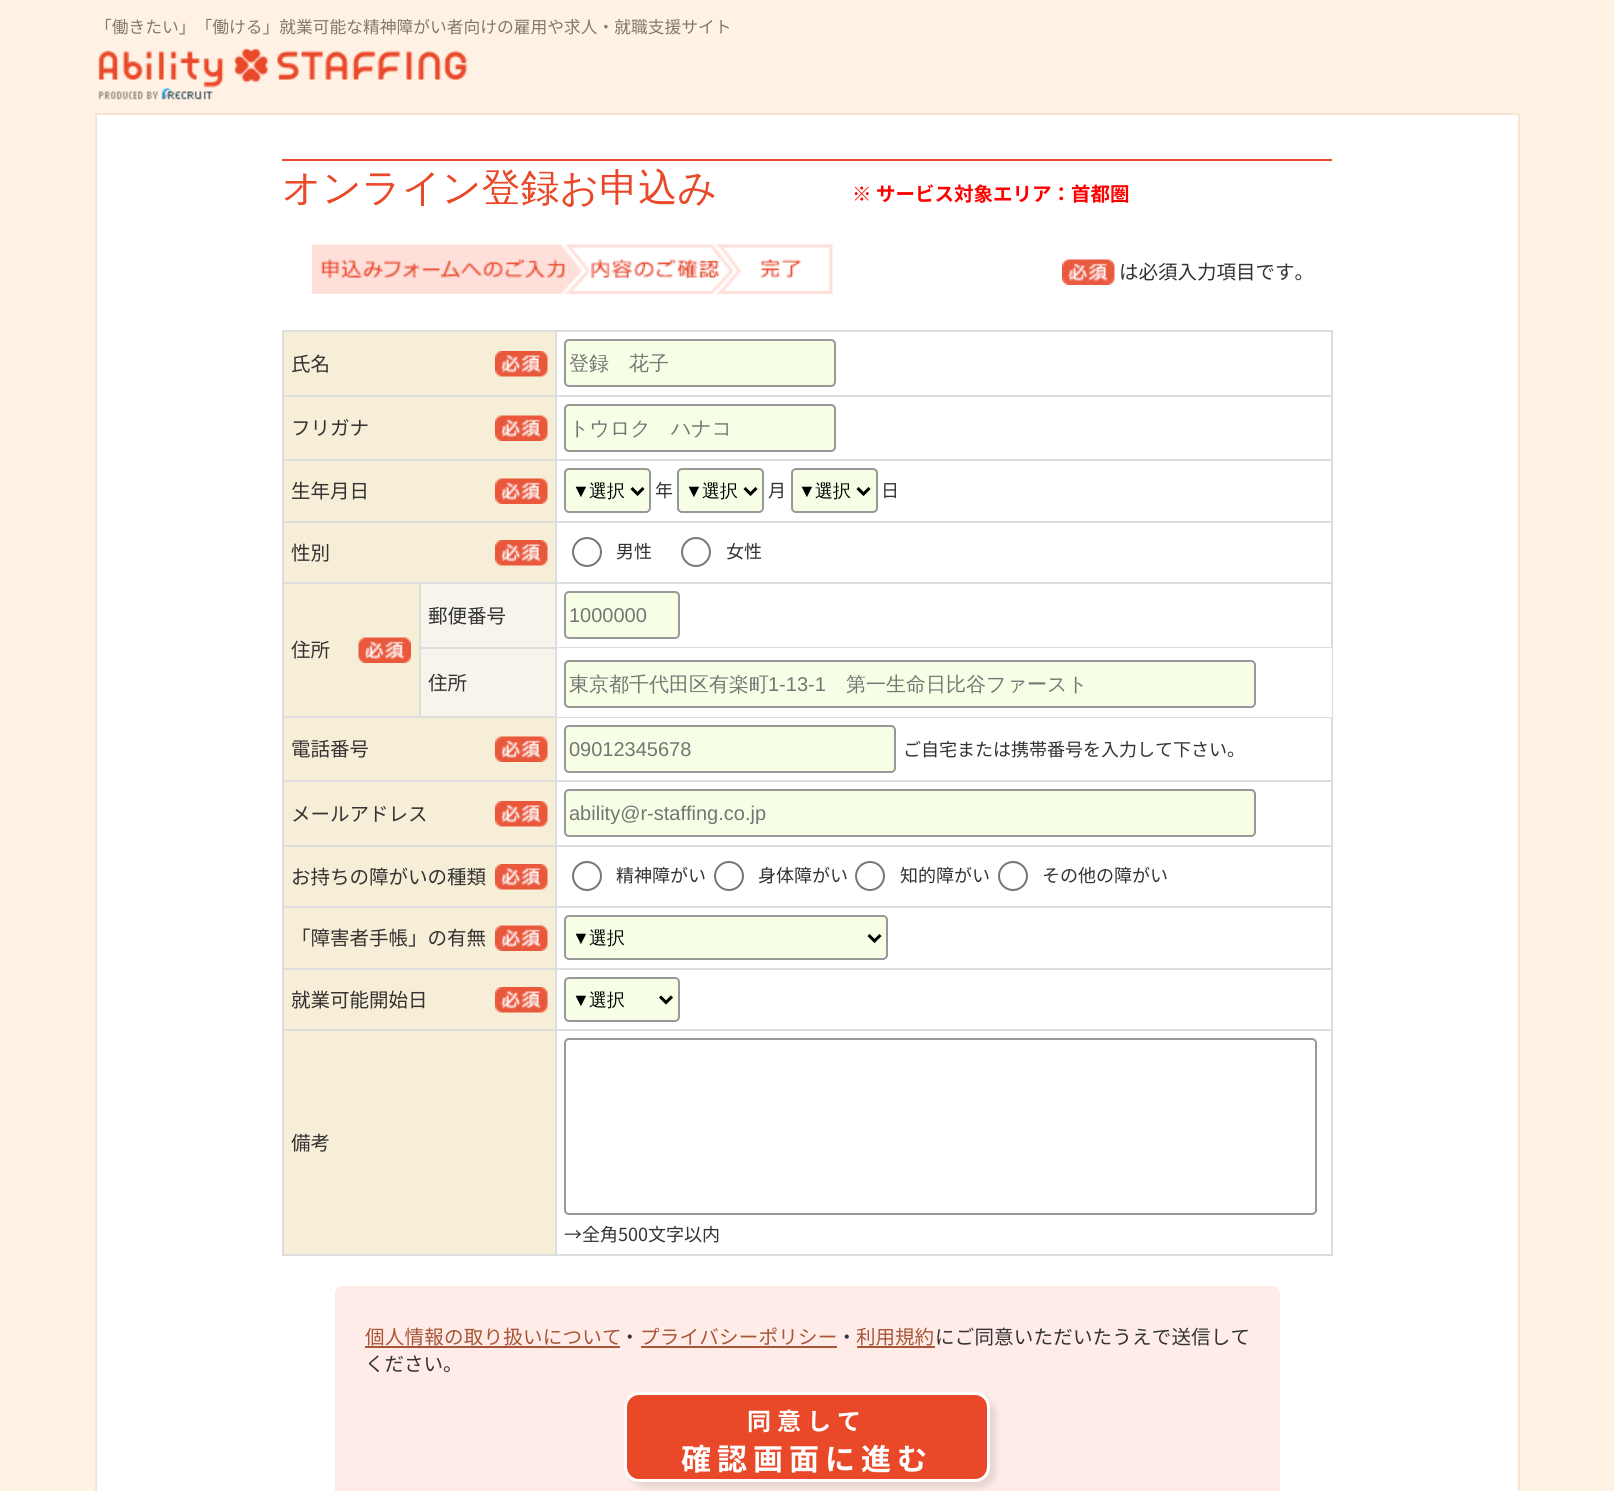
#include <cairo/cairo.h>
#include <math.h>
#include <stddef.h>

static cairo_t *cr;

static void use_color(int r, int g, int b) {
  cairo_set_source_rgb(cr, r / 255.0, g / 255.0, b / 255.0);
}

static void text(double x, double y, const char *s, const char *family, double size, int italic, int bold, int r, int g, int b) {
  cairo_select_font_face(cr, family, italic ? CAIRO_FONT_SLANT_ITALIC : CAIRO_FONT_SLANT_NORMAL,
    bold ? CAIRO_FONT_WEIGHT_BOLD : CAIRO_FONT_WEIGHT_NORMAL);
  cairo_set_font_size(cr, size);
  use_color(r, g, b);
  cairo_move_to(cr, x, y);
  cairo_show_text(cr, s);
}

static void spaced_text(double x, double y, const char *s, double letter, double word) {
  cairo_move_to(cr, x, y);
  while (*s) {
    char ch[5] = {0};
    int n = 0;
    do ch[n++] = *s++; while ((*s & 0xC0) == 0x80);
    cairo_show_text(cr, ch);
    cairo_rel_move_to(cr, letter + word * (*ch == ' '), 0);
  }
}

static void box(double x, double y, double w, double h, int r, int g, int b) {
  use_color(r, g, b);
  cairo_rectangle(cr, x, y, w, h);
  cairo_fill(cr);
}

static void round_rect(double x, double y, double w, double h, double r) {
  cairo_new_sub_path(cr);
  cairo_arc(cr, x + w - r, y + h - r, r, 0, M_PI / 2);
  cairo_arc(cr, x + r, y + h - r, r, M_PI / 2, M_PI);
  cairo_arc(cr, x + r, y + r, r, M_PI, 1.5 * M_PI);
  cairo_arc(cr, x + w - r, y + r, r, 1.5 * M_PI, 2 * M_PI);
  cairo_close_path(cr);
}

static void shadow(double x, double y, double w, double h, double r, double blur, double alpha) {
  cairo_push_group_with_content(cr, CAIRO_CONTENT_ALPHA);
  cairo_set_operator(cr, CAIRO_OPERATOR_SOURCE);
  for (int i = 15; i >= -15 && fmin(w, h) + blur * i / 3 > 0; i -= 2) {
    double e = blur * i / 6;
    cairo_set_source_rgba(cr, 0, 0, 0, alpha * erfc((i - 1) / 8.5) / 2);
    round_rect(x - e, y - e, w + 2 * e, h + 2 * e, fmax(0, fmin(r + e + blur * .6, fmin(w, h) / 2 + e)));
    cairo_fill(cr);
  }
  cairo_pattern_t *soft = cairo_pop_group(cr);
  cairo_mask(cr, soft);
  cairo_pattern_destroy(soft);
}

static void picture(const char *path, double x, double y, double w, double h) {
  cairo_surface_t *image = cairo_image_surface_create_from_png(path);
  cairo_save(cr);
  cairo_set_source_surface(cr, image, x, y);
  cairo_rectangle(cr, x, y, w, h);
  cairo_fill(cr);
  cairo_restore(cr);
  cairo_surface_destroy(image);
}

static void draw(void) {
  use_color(255, 241, 228);
  cairo_paint(cr);
  picture("img_01.png", 98, 48, 369, 52);
  use_color(255, 255, 255);
  round_rect(96, 114, 1423, 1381, 2);
  cairo_fill_preserve(cr);
  use_color(247, 228, 211);
  cairo_stroke(cr);
  box(282, 159, 1050, 2, 233, 72, 41);
  picture("img_02.png", 312, 244, 521, 50);
  picture("img_03.png", 1062, 259, 53, 26);
  box(282, 330, 1050, 2, 221, 221, 221);
  box(1331, 330, 2, 926, 221, 221, 221);
  box(282, 1254, 1050, 2, 221, 221, 221);
  box(282, 330, 2, 926, 221, 221, 221);
  box(284, 332, 271, 63, 247, 238, 215);
  picture("img_04.png", 495, 351, 53, 26);
  box(555, 395, 777, 2, 221, 221, 221);
  box(555, 459, 777, 2, 221, 221, 221);
  box(555, 521, 777, 2, 221, 221, 221);
  box(555, 582, 777, 2, 221, 221, 221);
  box(555, 647, 777, 1, 221, 221, 221);
  box(555, 717, 777, 1, 221, 221, 221);
  box(555, 780, 777, 2, 221, 221, 221);
  box(555, 845, 777, 2, 221, 221, 221);
  box(555, 906, 777, 2, 221, 221, 221);
  box(555, 968, 777, 2, 221, 221, 221);
  box(555, 1029, 777, 2, 221, 221, 221);
  box(555, 1029, 2, 227, 221, 221, 221);
  box(282, 1029, 275, 2, 221, 221, 221);
  box(555, 968, 2, 63, 221, 221, 221);
  box(282, 968, 275, 2, 221, 221, 221);
  box(555, 906, 2, 63, 221, 221, 221);
  box(282, 906, 275, 2, 221, 221, 221);
  box(555, 845, 2, 63, 221, 221, 221);
  box(282, 845, 275, 2, 221, 221, 221);
  box(555, 780, 2, 66, 221, 221, 221);
  box(282, 780, 275, 2, 221, 221, 221);
  box(555, 716, 2, 66, 221, 221, 221);
  box(282, 716, 275, 2, 221, 221, 221);
  box(555, 647, 2, 70, 221, 221, 221);
  box(419, 647, 138, 2, 221, 221, 221);
  box(555, 582, 2, 66, 221, 221, 221);
  box(419, 582, 138, 2, 221, 221, 221);
  box(555, 521, 2, 63, 221, 221, 221);
  box(282, 521, 275, 2, 221, 221, 221);
  box(555, 459, 2, 63, 221, 221, 221);
  box(282, 459, 275, 2, 221, 221, 221);
  box(555, 395, 2, 66, 221, 221, 221);
  box(282, 395, 275, 2, 221, 221, 221);
  box(555, 330, 2, 66, 221, 221, 221);
  use_color(246, 255, 229);
  round_rect(565, 340, 270, 46, 4);
  cairo_fill_preserve(cr);
  use_color(152, 152, 152);
  cairo_stroke(cr);
  box(284, 397, 271, 62, 247, 238, 215);
  picture("img_05.png", 495, 415, 53, 26);
  use_color(246, 255, 229);
  round_rect(565, 405, 270, 46, 4);
  cairo_fill_preserve(cr);
  use_color(152, 152, 152);
  cairo_stroke(cr);
  box(284, 461, 271, 60, 247, 238, 215);
  picture("img_05.png", 495, 478, 53, 26);
  use_color(246, 255, 229);
  round_rect(565, 469, 85, 43, 4);
  cairo_fill_preserve(cr);
  use_color(152, 152, 152);
  cairo_stroke(cr);
  cairo_new_path(cr);
  cairo_move_to(cr, 631.5, 488);
  cairo_line_to(cr, 637.5, 494);
  cairo_line_to(cr, 643.5, 488);
  use_color(0, 0, 0);
  cairo_set_line_width(cr, 3);
  cairo_stroke(cr);
  use_color(246, 255, 229);
  round_rect(678, 469, 85, 43, 4);
  cairo_fill_preserve(cr);
  use_color(152, 152, 152);
  cairo_set_line_width(cr, 2);
  cairo_stroke(cr);
  cairo_new_path(cr);
  cairo_move_to(cr, 744.5, 488);
  cairo_line_to(cr, 750.5, 494);
  cairo_line_to(cr, 756.5, 488);
  use_color(0, 0, 0);
  cairo_set_line_width(cr, 3);
  cairo_stroke(cr);
  use_color(246, 255, 229);
  round_rect(792, 469, 85, 43, 4);
  cairo_fill_preserve(cr);
  use_color(152, 152, 152);
  cairo_set_line_width(cr, 2);
  cairo_stroke(cr);
  cairo_new_path(cr);
  cairo_move_to(cr, 857.5, 488);
  cairo_line_to(cr, 863.5, 494);
  cairo_line_to(cr, 869.5, 488);
  use_color(0, 0, 0);
  cairo_set_line_width(cr, 3);
  cairo_stroke(cr);
  box(284, 523, 271, 59, 247, 238, 215);
  picture("img_04.png", 495, 540, 53, 26);
  cairo_arc(cr, 587, 552, 14, 0, 2 * M_PI);
  use_color(118, 118, 118);
  cairo_set_line_width(cr, 2);
  cairo_stroke(cr);
  cairo_arc(cr, 696, 552, 14, 0, 2 * M_PI);
  cairo_stroke(cr);
  box(421, 584, 134, 63, 247, 244, 235);
  box(419, 647, 2, 70, 221, 221, 221);
  box(419, 582, 2, 66, 221, 221, 221);
  use_color(246, 255, 229);
  round_rect(565, 592, 114, 46, 4);
  cairo_fill_preserve(cr);
  use_color(152, 152, 152);
  cairo_stroke(cr);
  box(284, 584, 135, 132, 247, 238, 215);
  box(282, 582, 138, 2, 221, 221, 221);
  picture("img_06.png", 358, 637, 53, 26);
  box(421, 649, 134, 67, 247, 244, 235);
  box(1331, 648, 1, 69, 255, 255, 255);
  use_color(246, 255, 229);
  round_rect(565, 661, 690, 46, 4);
  cairo_fill_preserve(cr);
  use_color(152, 152, 152);
  cairo_stroke(cr);
  box(284, 718, 271, 62, 247, 238, 215);
  picture("img_05.png", 495, 736, 53, 26);
  use_color(246, 255, 229);
  round_rect(565, 726, 330, 46, 4);
  cairo_fill_preserve(cr);
  use_color(152, 152, 152);
  cairo_stroke(cr);
  box(284, 782, 271, 63, 247, 238, 215);
  picture("img_04.png", 495, 801, 53, 26);
  use_color(246, 255, 229);
  round_rect(565, 790, 690, 46, 4);
  cairo_fill_preserve(cr);
  use_color(152, 152, 152);
  cairo_stroke(cr);
  box(284, 847, 271, 59, 247, 238, 215);
  picture("img_04.png", 495, 864, 53, 26);
  cairo_arc(cr, 587, 876, 14, 0, 2 * M_PI);
  use_color(118, 118, 118);
  cairo_stroke(cr);
  cairo_arc(cr, 729, 876, 14, 0, 2 * M_PI);
  cairo_stroke(cr);
  cairo_arc(cr, 870, 876, 14, 0, 2 * M_PI);
  cairo_stroke(cr);
  cairo_arc(cr, 1013, 876, 14, 0, 2 * M_PI);
  cairo_stroke(cr);
  box(284, 908, 271, 60, 247, 238, 215);
  picture("img_05.png", 495, 925, 53, 26);
  use_color(246, 255, 229);
  round_rect(565, 916, 322, 43, 4);
  cairo_fill_preserve(cr);
  use_color(152, 152, 152);
  cairo_stroke(cr);
  cairo_new_path(cr);
  cairo_move_to(cr, 868.5, 935);
  cairo_line_to(cr, 874.5, 941);
  cairo_line_to(cr, 880.5, 935);
  use_color(0, 0, 0);
  cairo_set_line_width(cr, 3);
  cairo_stroke(cr);
  box(284, 970, 271, 59, 247, 238, 215);
  picture("img_04.png", 495, 987, 53, 26);
  use_color(246, 255, 229);
  round_rect(565, 978, 114, 43, 4);
  cairo_fill_preserve(cr);
  use_color(152, 152, 152);
  cairo_set_line_width(cr, 2);
  cairo_stroke(cr);
  cairo_new_path(cr);
  cairo_move_to(cr, 660, 996.5);
  cairo_line_to(cr, 666, 1002.5);
  cairo_line_to(cr, 672, 996.5);
  use_color(0, 0, 0);
  cairo_set_line_width(cr, 3);
  cairo_stroke(cr);
  box(284, 1031, 271, 223, 247, 238, 215);
  round_rect(565, 1039, 751, 175, 4);
  use_color(152, 152, 152);
  cairo_set_line_width(cr, 2);
  cairo_stroke(cr);
  use_color(255, 236, 232);
  round_rect(335, 1286, 945, 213, 8);
  cairo_fill(cr);
  box(365, 1346, 255, 2, 168, 86, 55);
  box(641, 1346, 196, 2, 168, 86, 55);
  box(857, 1346, 78, 2, 168, 86, 55);
  use_color(0, 0, 0);
  shadow(630, 1398, 366, 90, 15, 3, 0.1);
  use_color(233, 72, 41);
  round_rect(625.5, 1393.5, 363, 87, 13.5);
  cairo_fill_preserve(cr);
  use_color(255, 255, 255);
  cairo_set_line_width(cr, 3);
  cairo_stroke(cr);
  text(95, 33, "「働きたい」「働ける」就業可能な精神障がい者向けの雇用や求人・就職支援サイト", "Noto Sans JP", 16.75, 0, 0, 129, 122, 111);
  text(282, 201, "オンライン登録お申込み", "WenQuanYi Zen Hei Medium", 39, 0, 0, 233, 72, 41);
  text(852, 201, "※ サービス対象エリア：首都圏", "Noto Sans JP", 19.5, 0, 1, 255, 0, 0);
  text(1119, 279, "は必須入力項目です。", "Noto Sans JP", 19.5, 0, 0, 51, 51, 51);
  text(291, 371, "氏名", "Noto Sans JP", 19.5, 0, 0, 51, 51, 51);
  text(569, 370, "登録　花子", "WenQuanYi Zen Hei Medium", 20, 0, 0, 117, 117, 117);
  text(291, 435, "フリガナ", "Noto Sans JP", 19.5, 0, 0, 51, 51, 51);
  text(569, 435, "トウロク　ハナコ", "WenQuanYi Zen Hei Medium", 20, 0, 0, 117, 117, 117);
  text(291, 498, "生年月日", "Noto Sans JP", 19.5, 0, 0, 51, 51, 51);
  text(572, 497, "▼", "Liberation Sans", 18, 0, 0, 0, 0, 0);
  text(589, 497, "選択", "WenQuanYi Zen Hei Medium", 18, 0, 0, 0, 0, 0);
  text(655, 497, "年", "Noto Sans JP", 18, 0, 0, 51, 51, 51);
  text(685, 497, "▼", "Liberation Sans", 18, 0, 0, 0, 0, 0);
  text(702, 497, "選択", "WenQuanYi Zen Hei Medium", 18, 0, 0, 0, 0, 0);
  text(768, 497, "月", "Noto Sans JP", 18, 0, 0, 51, 51, 51);
  text(798, 497, "▼", "Liberation Sans", 18, 0, 0, 0, 0, 0);
  text(815, 497, "選択", "WenQuanYi Zen Hei Medium", 18, 0, 0, 0, 0, 0);
  text(881, 497, "日", "Noto Sans JP", 18, 0, 0, 51, 51, 51);
  text(291, 560, "性別", "Noto Sans JP", 19.5, 0, 0, 51, 51, 51);
  text(616, 558, "男性", "Noto Sans JP", 18, 0, 0, 51, 51, 51);
  text(726, 558, "女性", "Noto Sans JP", 18, 0, 0, 51, 51, 51);
  text(428, 623, "郵便番号", "Noto Sans JP", 19.5, 0, 0, 51, 51, 51);
  text(569, 622, "1000000", "Liberation Sans", 20, 0, 0, 117, 117, 117);
  text(291, 657, "住所", "Noto Sans JP", 19.5, 0, 0, 51, 51, 51);
  text(428, 690, "住所", "Noto Sans JP", 19.5, 0, 0, 51, 51, 51);
  text(569, 691, "東京都千代田区有楽町", "WenQuanYi Zen Hei Medium", 20, 0, 0, 117, 117, 117);
  text(768, 691, "1-13-1", "Liberation Sans", 20, 0, 0, 117, 117, 117);
  text(846, 691, "第一生命日比谷ファースト", "WenQuanYi Zen Hei Medium", 20, 0, 0, 117, 117, 117);
  text(291, 756, "電話番号", "Noto Sans JP", 19.5, 0, 0, 51, 51, 51);
  text(569, 756, "09012345678", "Liberation Sans", 20, 0, 0, 117, 117, 117);
  text(903, 756, "ご自宅または携帯番号を入力して下さい。", "Noto Sans JP", 18, 0, 0, 51, 51, 51);
  text(291, 821, "メールアドレス", "Noto Sans JP", 19.5, 0, 0, 51, 51, 51);
  text(569, 820, "ability@r-staffing.co.jp", "Liberation Sans", 20, 0, 0, 117, 117, 117);
  text(291, 884, "お持ちの障がいの種類", "Noto Sans JP", 19.5, 0, 0, 51, 51, 51);
  text(616, 882, "精神障がい", "Noto Sans JP", 18, 0, 0, 51, 51, 51);
  text(758, 882, "身体障がい", "Noto Sans JP", 18, 0, 0, 51, 51, 51);
  text(900, 882, "知的障がい", "Noto Sans JP", 18, 0, 0, 51, 51, 51);
  text(1042, 882, "その他の障がい", "Noto Sans JP", 18, 0, 0, 51, 51, 51);
  text(291, 945, "「障害者手帳」の有無", "Noto Sans JP", 19.5, 0, 0, 51, 51, 51);
  text(572, 944, "▼", "Liberation Sans", 18, 0, 0, 0, 0, 0);
  text(589, 944, "選択", "WenQuanYi Zen Hei Medium", 18, 0, 0, 0, 0, 0);
  text(291, 1007, "就業可能開始日", "Noto Sans JP", 19.5, 0, 0, 51, 51, 51);
  text(572, 1006, "▼", "Liberation Sans", 18, 0, 0, 0, 0, 0);
  text(589, 1006, "選択", "WenQuanYi Zen Hei Medium", 18, 0, 0, 0, 0, 0);
  text(291, 1150, "備考", "Noto Sans JP", 19.5, 0, 0, 51, 51, 51);
  text(564, 1241, "→全角500文字以内", "Noto Sans JP", 18, 0, 0, 51, 51, 51);
  cairo_set_font_size(cr, 19.5);
  use_color(168, 86, 55);
  spaced_text(365, 1344, "個人情報の取り扱いについて", 0.25, 0);
  text(620, 1344, "・", "Noto Sans JP", 19.5, 0, 0, 51, 51, 51);
  use_color(168, 86, 55);
  spaced_text(640, 1344, "プライバシーポリシー", 0.25, 0);
  text(837, 1344, "・", "Noto Sans JP", 19.5, 0, 0, 51, 51, 51);
  text(856, 1344, "利用規約", "Noto Sans JP", 19.5, 0, 0, 168, 86, 55);
  use_color(51, 51, 51);
  spaced_text(935, 1344, "にご同意いただいたうえで送信して", 0.2, 0);
  text(365, 1371, "ください。", "Noto Sans JP", 19.5, 0, 0, 51, 51, 51);
  cairo_select_font_face(cr, "Noto Sans JP", CAIRO_FONT_SLANT_NORMAL, CAIRO_FONT_WEIGHT_BOLD);
  cairo_set_font_size(cr, 24);
  use_color(255, 255, 255);
  spaced_text(747, 1430, "同意して", 6, 0);
  cairo_set_font_size(cr, 30);
  spaced_text(681, 1470, "確認画面に進む", 6, 0);
}

int main(void) {
  cairo_surface_t *surface = cairo_image_surface_create(CAIRO_FORMAT_RGB24, 1614, 1491);
  cr = cairo_create(surface);
  cairo_font_options_t *options = cairo_font_options_create();
  cairo_font_options_set_hint_metrics(options, CAIRO_HINT_METRICS_OFF);
  cairo_font_options_set_hint_style(options, CAIRO_HINT_STYLE_NONE);
  cairo_set_font_options(cr, options);
  cairo_set_miter_limit(cr, 4);
  draw();
  cairo_surface_write_to_png(surface, "out.png");
  cairo_font_options_destroy(options);
  cairo_destroy(cr);
  cairo_surface_destroy(surface);
  return 0;
}
